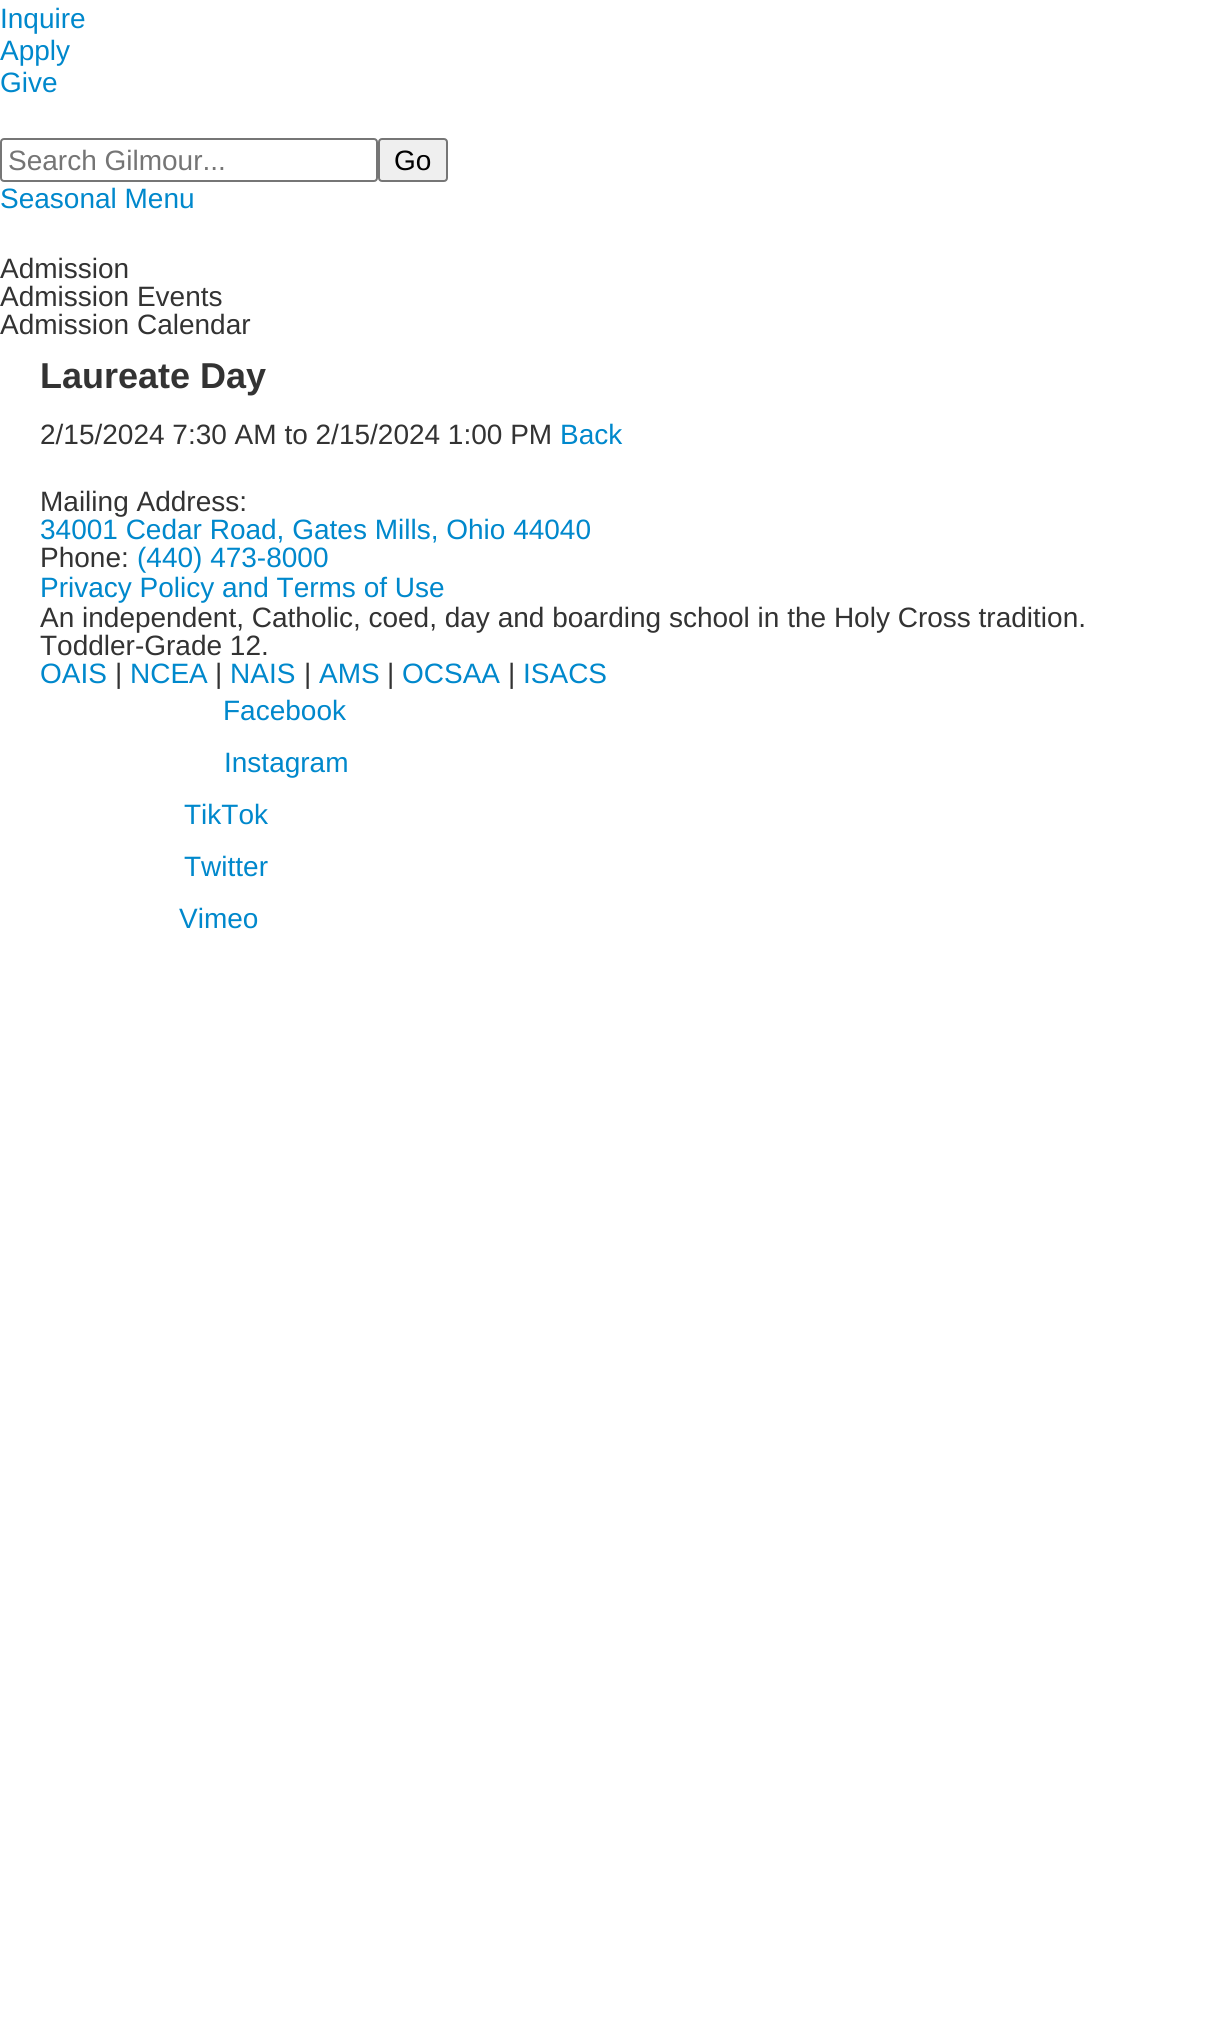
#include <cairo/cairo.h>
#include <math.h>
#include <stddef.h>

static cairo_t *cr;

static void use_color(int r, int g, int b) {
  cairo_set_source_rgb(cr, r / 255.0, g / 255.0, b / 255.0);
}

static void text(double x, double y, const char *s, const char *family, double size, int italic, int bold, int r, int g, int b) {
  cairo_select_font_face(cr, family, italic ? CAIRO_FONT_SLANT_ITALIC : CAIRO_FONT_SLANT_NORMAL,
    bold ? CAIRO_FONT_WEIGHT_BOLD : CAIRO_FONT_WEIGHT_NORMAL);
  cairo_set_font_size(cr, size);
  use_color(r, g, b);
  cairo_move_to(cr, x, y);
  cairo_show_text(cr, s);
}

static void round_rect(double x, double y, double w, double h, double r) {
  cairo_new_sub_path(cr);
  cairo_arc(cr, x + w - r, y + h - r, r, 0, M_PI / 2);
  cairo_arc(cr, x + r, y + h - r, r, M_PI / 2, M_PI);
  cairo_arc(cr, x + r, y + r, r, M_PI, 1.5 * M_PI);
  cairo_arc(cr, x + w - r, y + r, r, 1.5 * M_PI, 2 * M_PI);
  cairo_close_path(cr);
}

static void draw(void) {
  use_color(255, 255, 255);
  cairo_paint(cr);
  round_rect(1, 139, 376, 42, 3);
  use_color(118, 118, 118);
  cairo_stroke(cr);
  use_color(239, 239, 239);
  round_rect(379, 139, 68, 42, 3);
  cairo_fill_preserve(cr);
  use_color(118, 118, 118);
  cairo_stroke(cr);
  text(0, 28, "Inquire", "Liberation Sans", 28, 0, 0, 0, 136, 204);
  text(0, 60, "Apply", "Liberation Sans", 28, 0, 0, 0, 136, 204);
  text(0, 92, "Give", "Liberation Sans", 28, 0, 0, 0, 136, 204);
  text(8, 170, "Search Gilmour...", "Liberation Sans", 28, 0, 0, 117, 117, 117);
  text(394, 170, "Go", "Liberation Sans", 28, 0, 0, 0, 0, 0);
  text(0, 208, "Seasonal Menu", "Liberation Sans", 28, 0, 0, 0, 136, 204);
  text(0, 278, "Admission", "Liberation Sans", 28, 0, 0, 51, 51, 51);
  text(0, 306, "Admission Events", "Liberation Sans", 28, 0, 0, 51, 51, 51);
  text(0, 334, "Admission Calendar", "Liberation Sans", 28, 0, 0, 51, 51, 51);
  text(40, 388, "Laureate Day", "Liberation Sans", 36, 0, 1, 51, 51, 51);
  text(40, 444, "2/15/2024 7:30 AM to 2/15/2024 1:00 PM", "Liberation Sans", 28, 0, 0, 51, 51, 51);
  text(560, 444, "Back", "Liberation Sans", 28, 0, 0, 0, 136, 204);
  text(40, 511, "Mailing Address:", "Liberation Sans", 28, 0, 0, 51, 51, 51);
  text(40, 539, "34001 Cedar Road, Gates Mills, Ohio 44040", "Liberation Sans", 28, 0, 0, 0, 136, 204);
  text(40, 567, "Phone:", "Liberation Sans", 28, 0, 0, 51, 51, 51);
  text(137, 567, "(440) 473-8000", "Liberation Sans", 28, 0, 0, 0, 136, 204);
  text(40, 597, "Privacy Policy and Terms of Use", "Liberation Sans", 28, 0, 0, 0, 136, 204);
  text(40, 627, "An independent, Catholic, coed, day and boarding school in the Holy Cross tradition.", "Liberation Sans", 28, 0, 0, 51, 51, 51);
  text(40, 655, "Toddler-Grade 12.", "Liberation Sans", 28, 0, 0, 51, 51, 51);
  text(40, 683, "OAIS", "Liberation Sans", 28, 0, 0, 0, 136, 204);
  text(115, 683, "|", "Liberation Sans", 28, 0, 0, 51, 51, 51);
  text(130, 683, "NCEA", "Liberation Sans", 28, 0, 0, 0, 136, 204);
  text(215, 683, "|", "Liberation Sans", 28, 0, 0, 51, 51, 51);
  text(230, 683, "NAIS", "Liberation Sans", 28, 0, 0, 0, 136, 204);
  text(304, 683, "|", "Liberation Sans", 28, 0, 0, 51, 51, 51);
  text(319, 683, "AMS", "Liberation Sans", 28, 0, 0, 0, 136, 204);
  text(387, 683, "|", "Liberation Sans", 28, 0, 0, 51, 51, 51);
  text(402, 683, "OCSAA", "Liberation Sans", 28, 0, 0, 0, 136, 204);
  text(508, 683, "|", "Liberation Sans", 28, 0, 0, 51, 51, 51);
  text(523, 683, "ISACS", "Liberation Sans", 28, 0, 0, 0, 136, 204);
  text(223, 720, "Facebook", "Liberation Sans", 28, 0, 0, 0, 136, 204);
  text(224, 772, "Instagram", "Liberation Sans", 28, 0, 0, 0, 136, 204);
  text(184, 824, "TikTok", "Liberation Sans", 28, 0, 0, 0, 136, 204);
  text(184, 876, "Twitter", "Liberation Sans", 28, 0, 0, 0, 136, 204);
  text(179, 928, "Vimeo", "Liberation Sans", 28, 0, 0, 0, 136, 204);
}

int main(void) {
  cairo_surface_t *surface = cairo_image_surface_create(CAIRO_FORMAT_RGB24, 1207, 2022);
  cr = cairo_create(surface);
  cairo_font_options_t *options = cairo_font_options_create();
  cairo_font_options_set_hint_metrics(options, CAIRO_HINT_METRICS_OFF);
  cairo_font_options_set_hint_style(options, CAIRO_HINT_STYLE_NONE);
  cairo_set_font_options(cr, options);
  cairo_set_miter_limit(cr, 4);
  draw();
  cairo_surface_write_to_png(surface, "out.png");
  cairo_font_options_destroy(options);
  cairo_destroy(cr);
  cairo_surface_destroy(surface);
  return 0;
}
